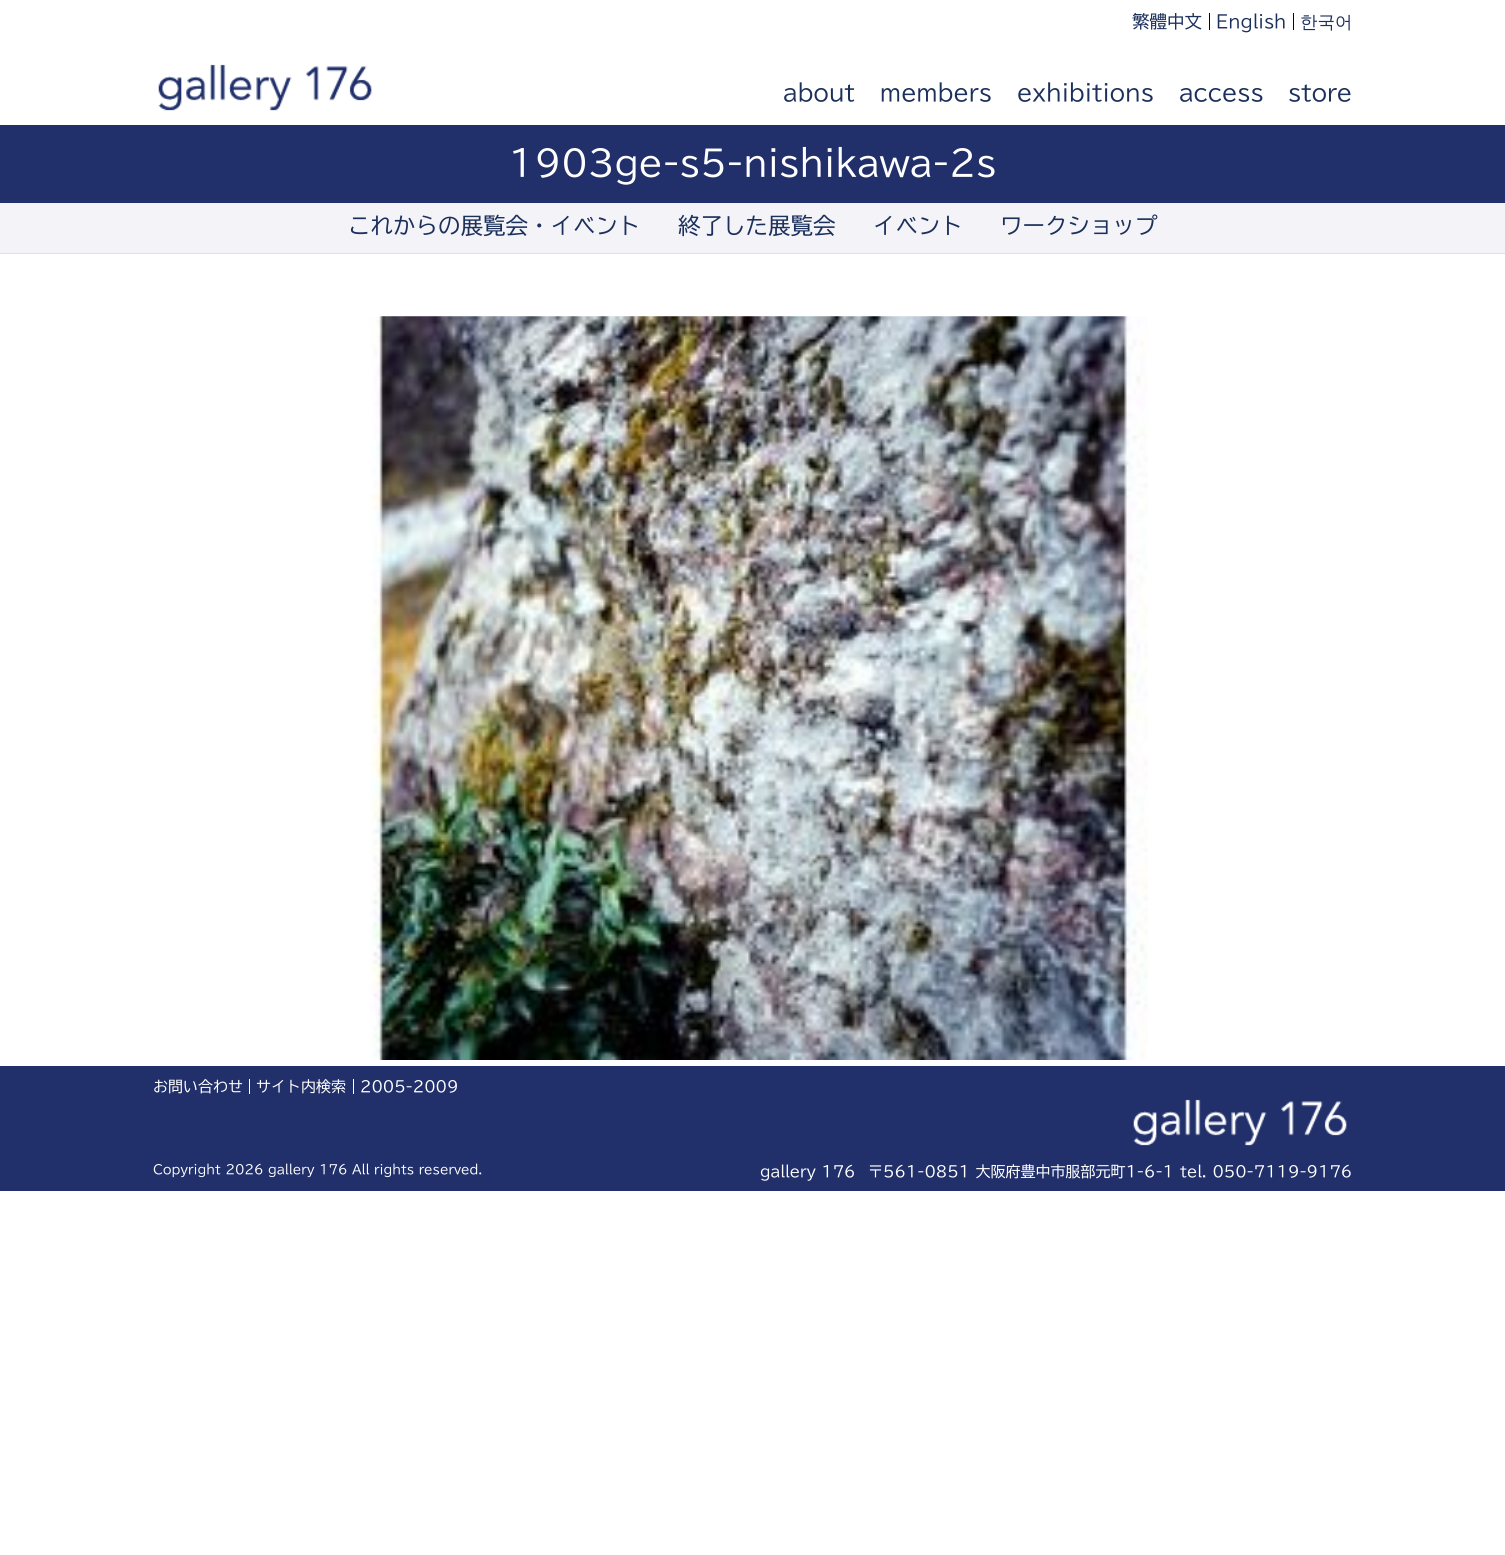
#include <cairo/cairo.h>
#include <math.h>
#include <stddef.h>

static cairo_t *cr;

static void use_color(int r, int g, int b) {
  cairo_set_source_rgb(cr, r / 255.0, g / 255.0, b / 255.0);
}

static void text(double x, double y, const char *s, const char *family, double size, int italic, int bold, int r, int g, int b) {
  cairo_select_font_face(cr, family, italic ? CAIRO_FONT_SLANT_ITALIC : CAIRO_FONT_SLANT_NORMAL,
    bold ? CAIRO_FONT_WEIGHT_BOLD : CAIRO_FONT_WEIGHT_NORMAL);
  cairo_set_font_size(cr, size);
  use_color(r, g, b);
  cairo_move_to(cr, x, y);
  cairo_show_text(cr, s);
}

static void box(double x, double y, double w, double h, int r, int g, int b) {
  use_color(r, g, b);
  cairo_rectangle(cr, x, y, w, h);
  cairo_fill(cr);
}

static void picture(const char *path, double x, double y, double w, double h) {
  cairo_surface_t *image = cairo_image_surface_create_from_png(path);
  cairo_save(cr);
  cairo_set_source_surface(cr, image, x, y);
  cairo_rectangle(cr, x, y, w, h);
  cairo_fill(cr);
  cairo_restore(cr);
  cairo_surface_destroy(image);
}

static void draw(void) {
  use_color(255, 255, 255);
  cairo_paint(cr);
  box(1209, 13, 1, 17, 13, 0, 21);
  box(1293, 13, 1, 17, 13, 0, 21);
  picture("img_01.png", 158, 64, 214, 47);
  box(0, 125, 1505, 78, 33, 47, 106);
  box(0, 203, 1505, 50, 243, 243, 248);
  box(0, 253, 1505, 1, 223, 223, 235);
  picture("img_02.png", 370, 316, 778, 744);
  box(0, 1066, 1505, 125, 33, 47, 106);
  box(249, 1079, 1, 15, 255, 255, 255);
  box(353, 1079, 1, 15, 255, 255, 255);
  picture("img_03.png", 1133, 1099, 214, 47);
  text(1132, 28, "繁體中文", "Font", 17.5, 0, 0, 28, 48, 92);
  text(1216, 28, "English", "Font", 17.5, 0, 0, 28, 48, 92);
  text(1300, 28, "한국어", "WenQuanYi Zen Hei Medium", 17.5, 0, 0, 28, 48, 92);
  text(783, 101, "about", "Font", 22.5, 0, 0, 28, 48, 92);
  text(880, 101, "members", "Font", 22.5, 0, 0, 28, 48, 92);
  text(1017, 101, "exhibitions", "Font", 22.5, 0, 0, 28, 48, 92);
  text(1179, 101, "access", "Font", 22.5, 0, 0, 28, 48, 92);
  text(1288, 101, "store", "Font", 22.5, 0, 0, 28, 48, 92);
  text(508, 176, "1903ge-s5-nishikawa-2s", "Font", 35, 0, 0, 255, 255, 255);
  text(348, 234, "これからの展覧会・イベント", "Font", 22.5, 0, 0, 28, 48, 92);
  text(678, 234, "終了した展覧会", "Font", 22.5, 0, 0, 28, 48, 92);
  text(873, 234, "イベント", "Font", 22.5, 0, 0, 28, 48, 92);
  text(1000, 234, "ワークショップ", "Font", 22.5, 0, 0, 28, 48, 92);
  text(153, 1092, "お問い合わせ", "Font", 15, 0, 0, 255, 255, 255);
  text(256, 1092, "サイト内検索", "Font", 15, 0, 0, 255, 255, 255);
  text(360, 1092, "2005-2009", "Font", 15, 0, 0, 255, 255, 255);
  text(153, 1174, "Copyright 2026 gallery 176 All rights reserved.", "Font", 12.5, 0, 0, 255, 255, 255);
  text(760, 1177, "gallery 176", "Font", 15, 0, 0, 255, 255, 255);
  text(868, 1177, "〒561-0851 大阪府豊中市服部元町1-6-1", "Font", 15, 0, 0, 255, 255, 255);
  text(1180, 1177, "tel. 050-7119-9176", "Font", 15, 0, 0, 255, 255, 255);
}

int main(void) {
  cairo_surface_t *surface = cairo_image_surface_create(CAIRO_FORMAT_RGB24, 1505, 1555);
  cr = cairo_create(surface);
  cairo_font_options_t *options = cairo_font_options_create();
  cairo_font_options_set_hint_metrics(options, CAIRO_HINT_METRICS_OFF);
  cairo_font_options_set_hint_style(options, CAIRO_HINT_STYLE_NONE);
  cairo_set_font_options(cr, options);
  cairo_set_miter_limit(cr, 4);
  draw();
  cairo_surface_write_to_png(surface, "out.png");
  cairo_font_options_destroy(options);
  cairo_destroy(cr);
  cairo_surface_destroy(surface);
  return 0;
}
